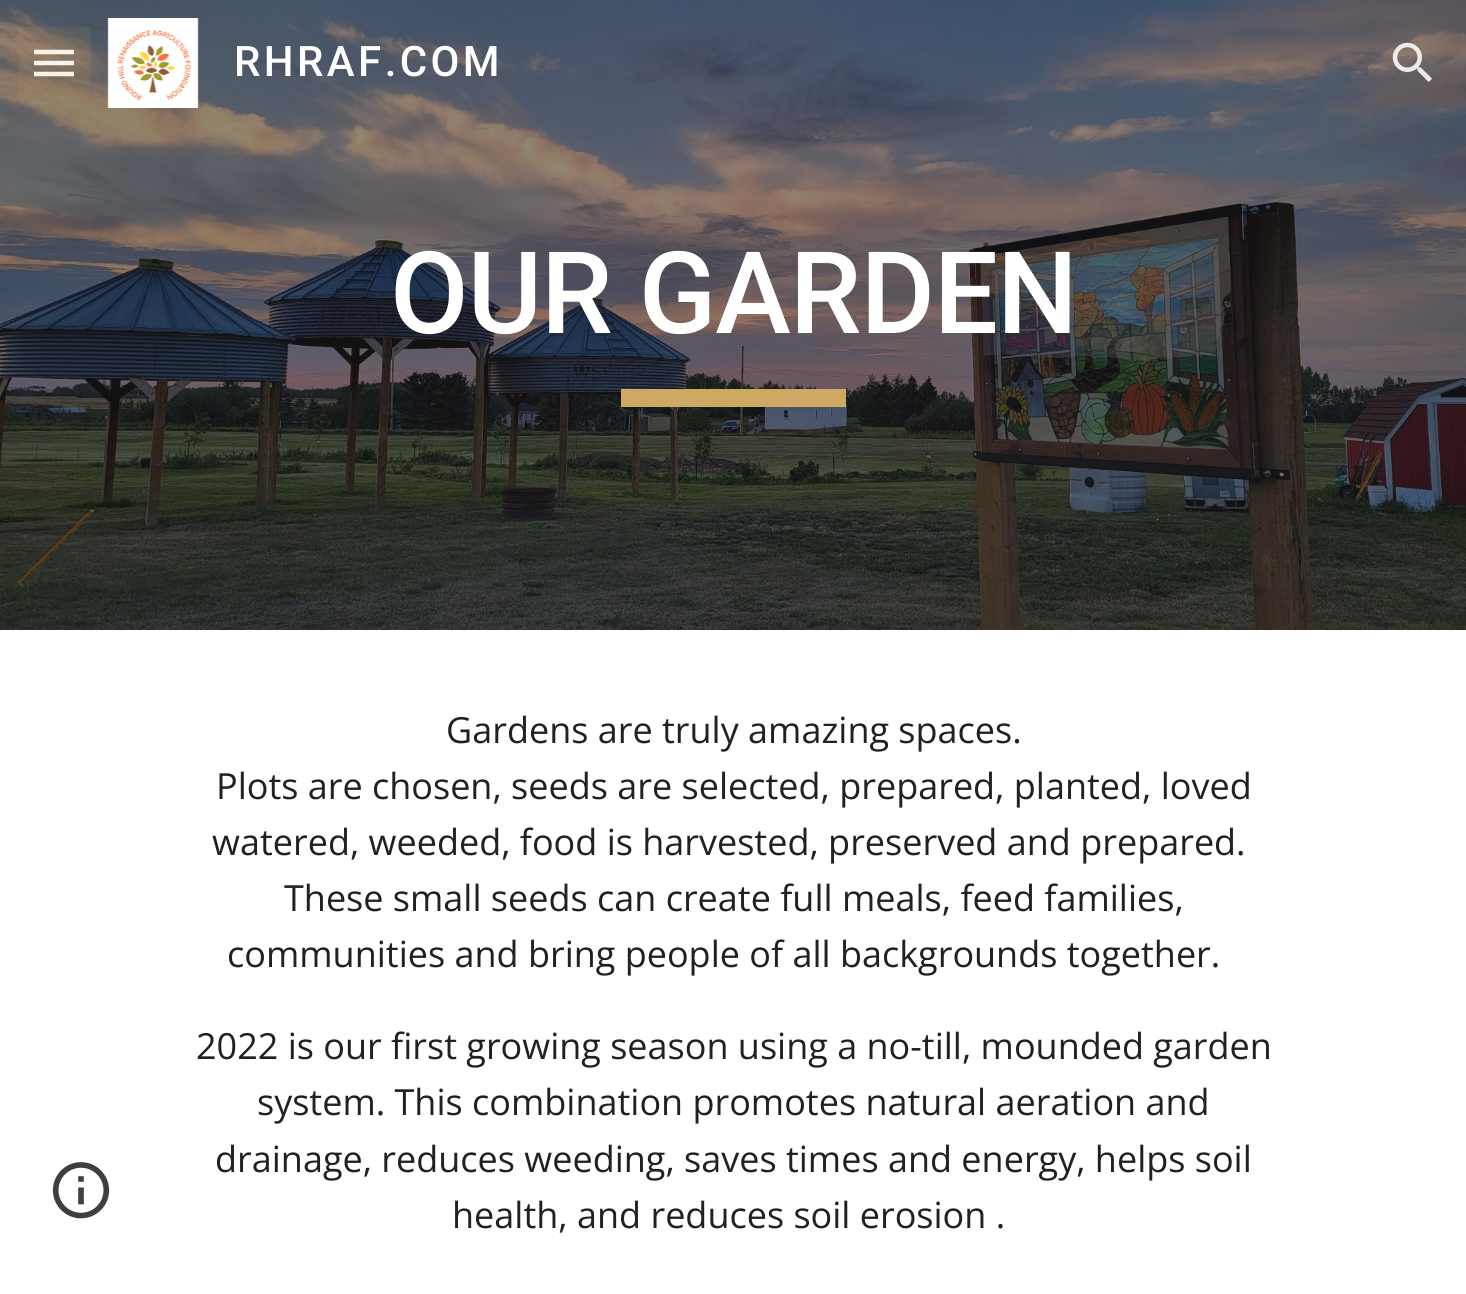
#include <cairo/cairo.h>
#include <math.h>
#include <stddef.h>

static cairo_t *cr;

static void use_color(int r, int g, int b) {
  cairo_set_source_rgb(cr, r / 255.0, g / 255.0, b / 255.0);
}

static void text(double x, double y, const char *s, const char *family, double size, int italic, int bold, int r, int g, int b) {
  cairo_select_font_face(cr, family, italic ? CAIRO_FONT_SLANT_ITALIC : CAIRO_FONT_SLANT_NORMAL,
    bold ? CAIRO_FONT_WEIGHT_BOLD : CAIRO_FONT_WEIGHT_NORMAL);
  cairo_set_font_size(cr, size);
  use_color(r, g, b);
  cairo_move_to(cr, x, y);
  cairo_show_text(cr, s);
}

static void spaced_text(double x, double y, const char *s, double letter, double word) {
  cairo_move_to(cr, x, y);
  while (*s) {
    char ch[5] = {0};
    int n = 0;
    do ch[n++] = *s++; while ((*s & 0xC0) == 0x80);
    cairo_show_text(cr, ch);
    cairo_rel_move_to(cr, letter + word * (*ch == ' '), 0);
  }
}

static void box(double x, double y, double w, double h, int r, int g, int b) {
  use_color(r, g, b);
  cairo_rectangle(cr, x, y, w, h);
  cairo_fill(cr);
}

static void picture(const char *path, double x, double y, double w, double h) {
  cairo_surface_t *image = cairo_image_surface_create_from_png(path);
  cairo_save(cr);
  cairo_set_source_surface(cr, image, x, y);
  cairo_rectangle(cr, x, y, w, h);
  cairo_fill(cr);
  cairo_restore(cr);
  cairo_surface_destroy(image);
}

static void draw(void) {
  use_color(255, 255, 255);
  cairo_paint(cr);
  picture("img_04.png", 0, 0, 1466, 630);
  cairo_new_path(cr);
  cairo_move_to(cr, 34, 52);
  cairo_line_to(cr, 74, 52);
  cairo_move_to(cr, 34, 63);
  cairo_line_to(cr, 74, 63);
  cairo_move_to(cr, 34, 74);
  cairo_line_to(cr, 74, 74);
  use_color(255, 255, 255);
  cairo_set_line_width(cr, 4.5);
  cairo_stroke(cr);
  cairo_set_source_rgba(cr, 0.718, 0.6, 0.318, 0.12);
  cairo_rectangle(cr, 18, 27, 72, 72);
  cairo_fill(cr);
  picture("img_01.png", 107, 18, 92, 90);
  picture("img_02.png", 1392, 42, 40, 40);
  picture("img_03.png", 52, 1162, 58, 57);
  box(621, 389, 225, 18, 206, 169, 100);
  cairo_select_font_face(cr, "Roboto Medium", CAIRO_FONT_SLANT_NORMAL, CAIRO_FONT_WEIGHT_NORMAL);
  cairo_set_font_size(cr, 42);
  use_color(255, 255, 255);
  spaced_text(234, 76, "RHRAF.COM", 3.4, 0);
  cairo_set_font_size(cr, 114);
  spaced_text(390, 333, "OUR GARDEN", -1.1, 0);
  text(446, 743, "Gardens are truly amazing spaces.", "Open Sans", 36, 0, 0, 33, 33, 33);
  text(216, 799, "Plots are chosen, seeds are selected, prepared, planted, loved", "Open Sans", 36, 0, 0, 33, 33, 33);
  text(212, 855, "watered, weeded, food is harvested, preserved and prepared.", "Open Sans", 36, 0, 0, 33, 33, 33);
  text(284, 911, "These small seeds can create full meals, feed families,", "Open Sans", 36, 0, 0, 33, 33, 33);
  text(227, 967, "communities and bring people of all backgrounds together.", "Open Sans", 36, 0, 0, 33, 33, 33);
  text(196, 1059, "2022 is our first growing season using a no-till, mounded garden", "Open Sans", 36, 0, 0, 33, 33, 33);
  text(257, 1115, "system. This combination promotes natural aeration and", "Open Sans", 36, 0, 0, 33, 33, 33);
  text(215, 1172, "drainage, reduces weeding, saves times and energy, helps soil", "Open Sans", 36, 0, 0, 33, 33, 33);
  text(452, 1228, "health, and reduces soil erosion .", "Open Sans", 36, 0, 0, 33, 33, 33);
}

int main(void) {
  cairo_surface_t *surface = cairo_image_surface_create(CAIRO_FORMAT_RGB24, 1466, 1294);
  cr = cairo_create(surface);
  cairo_font_options_t *options = cairo_font_options_create();
  cairo_font_options_set_hint_metrics(options, CAIRO_HINT_METRICS_OFF);
  cairo_font_options_set_hint_style(options, CAIRO_HINT_STYLE_NONE);
  cairo_set_font_options(cr, options);
  cairo_set_miter_limit(cr, 4);
  draw();
  cairo_surface_write_to_png(surface, "out.png");
  cairo_font_options_destroy(options);
  cairo_destroy(cr);
  cairo_surface_destroy(surface);
  return 0;
}
